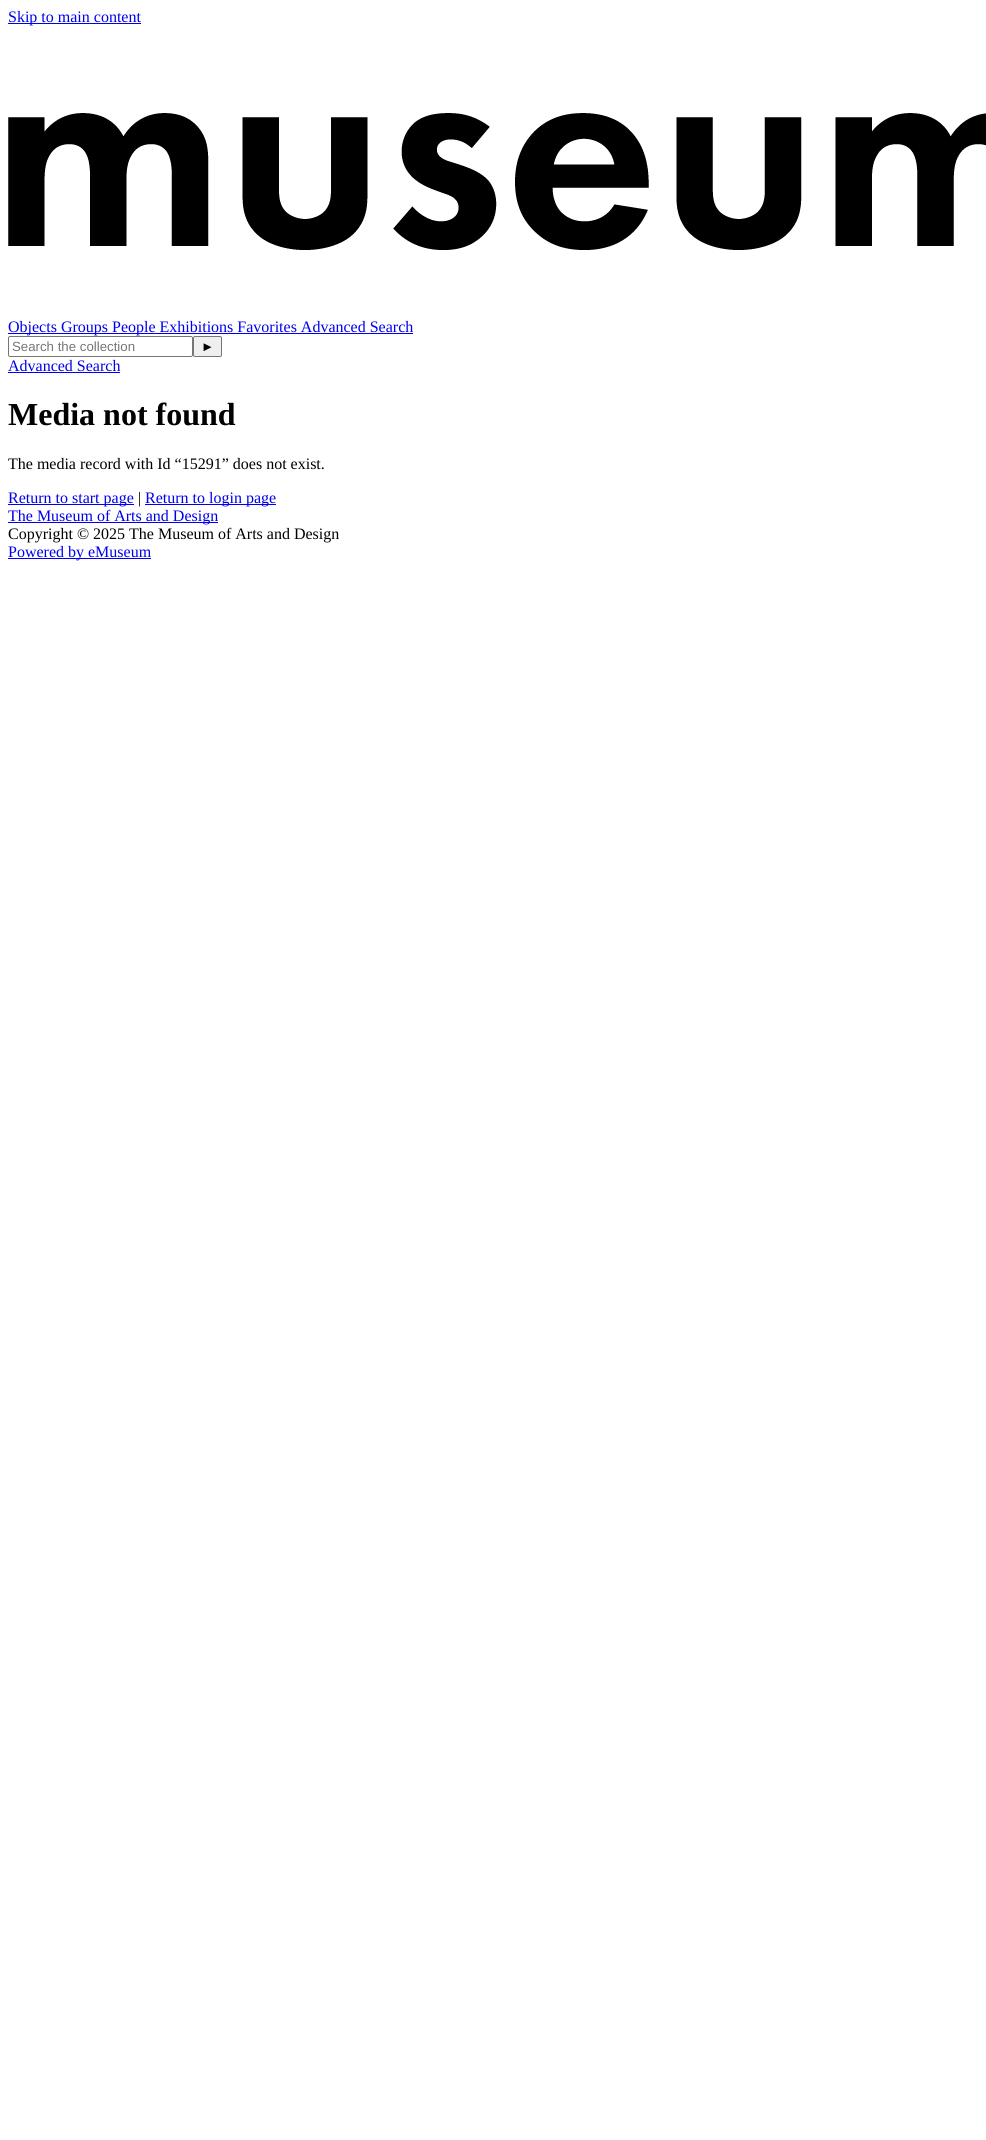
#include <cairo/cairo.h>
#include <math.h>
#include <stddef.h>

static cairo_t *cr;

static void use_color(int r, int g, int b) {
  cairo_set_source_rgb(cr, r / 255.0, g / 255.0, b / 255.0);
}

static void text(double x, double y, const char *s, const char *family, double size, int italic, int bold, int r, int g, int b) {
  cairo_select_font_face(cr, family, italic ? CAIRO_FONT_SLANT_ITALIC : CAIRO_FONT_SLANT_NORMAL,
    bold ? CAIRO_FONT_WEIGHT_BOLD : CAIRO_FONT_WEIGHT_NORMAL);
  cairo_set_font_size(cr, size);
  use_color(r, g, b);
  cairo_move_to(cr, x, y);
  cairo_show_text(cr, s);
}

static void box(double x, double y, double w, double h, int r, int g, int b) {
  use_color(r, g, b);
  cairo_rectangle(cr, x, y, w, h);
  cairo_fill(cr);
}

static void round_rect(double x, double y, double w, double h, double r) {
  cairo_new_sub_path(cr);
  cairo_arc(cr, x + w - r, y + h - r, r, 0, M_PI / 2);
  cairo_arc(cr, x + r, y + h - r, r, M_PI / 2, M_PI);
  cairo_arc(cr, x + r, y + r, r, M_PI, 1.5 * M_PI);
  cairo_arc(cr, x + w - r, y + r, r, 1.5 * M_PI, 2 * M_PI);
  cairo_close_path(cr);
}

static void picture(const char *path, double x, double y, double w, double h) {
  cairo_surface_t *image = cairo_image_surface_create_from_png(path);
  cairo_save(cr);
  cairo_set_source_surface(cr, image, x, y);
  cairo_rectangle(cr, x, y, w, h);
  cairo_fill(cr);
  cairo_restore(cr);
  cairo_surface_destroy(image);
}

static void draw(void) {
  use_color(255, 255, 255);
  cairo_paint(cr);
  box(8, 23, 133, 1, 0, 0, 238);
  picture("img_01.png", 8, 113, 978, 137);
  box(8, 333, 405, 1, 0, 0, 238);
  round_rect(8.5, 336.5, 184, 20, 1.5);
  use_color(118, 118, 118);
  cairo_set_line_width(cr, 1);
  cairo_stroke(cr);
  use_color(239, 239, 239);
  round_rect(193.5, 336.5, 28, 20, 1.5);
  cairo_fill_preserve(cr);
  use_color(118, 118, 118);
  cairo_stroke(cr);
  box(8, 372, 112, 1, 0, 0, 238);
  box(8, 504, 126, 1, 0, 0, 238);
  box(145, 504, 131, 1, 0, 0, 238);
  box(8, 522, 210, 1, 0, 0, 238);
  box(8, 558, 143, 1, 0, 0, 238);
  text(8, 22, "Skip to main content", "Liberation Serif", 16, 0, 0, 0, 0, 238);
  text(8, 332, "Objects Groups People Exhibitions Favorites Advanced Search", "Liberation Serif", 16, 0, 0, 0, 0, 238);
  text(12, 351, "Search the collection", "Liberation Sans", 13.25, 0, 0, 117, 117, 117);
  text(201, 351, "►", "Liberation Sans", 13.25, 0, 0, 0, 0, 0);
  text(8, 371, "Advanced Search", "Liberation Serif", 16, 0, 0, 0, 0, 238);
  text(8, 425, "Media not found", "Liberation Serif", 32, 0, 1, 0, 0, 0);
  text(8, 469, "The media record with Id “15291” does not exist.", "Liberation Serif", 16, 0, 0, 0, 0, 0);
  text(8, 503, "Return to start page", "Liberation Serif", 16, 0, 0, 0, 0, 238);
  text(138, 503, "|", "Liberation Serif", 16, 0, 0, 0, 0, 0);
  text(145, 503, "Return to login page", "Liberation Serif", 16, 0, 0, 0, 0, 238);
  text(8, 521, "The Museum of Arts and Design", "Liberation Serif", 16, 0, 0, 0, 0, 238);
  text(8, 539, "Copyright © 2025 The Museum of Arts and Design", "Liberation Serif", 16, 0, 0, 0, 0, 0);
  text(8, 557, "Powered by eMuseum", "Liberation Serif", 16, 0, 0, 0, 0, 238);
}

int main(void) {
  cairo_surface_t *surface = cairo_image_surface_create(CAIRO_FORMAT_RGB24, 986, 2140);
  cr = cairo_create(surface);
  cairo_font_options_t *options = cairo_font_options_create();
  cairo_font_options_set_hint_metrics(options, CAIRO_HINT_METRICS_OFF);
  cairo_font_options_set_hint_style(options, CAIRO_HINT_STYLE_NONE);
  cairo_set_font_options(cr, options);
  cairo_set_miter_limit(cr, 4);
  draw();
  cairo_surface_write_to_png(surface, "out.png");
  cairo_font_options_destroy(options);
  cairo_destroy(cr);
  cairo_surface_destroy(surface);
  return 0;
}
